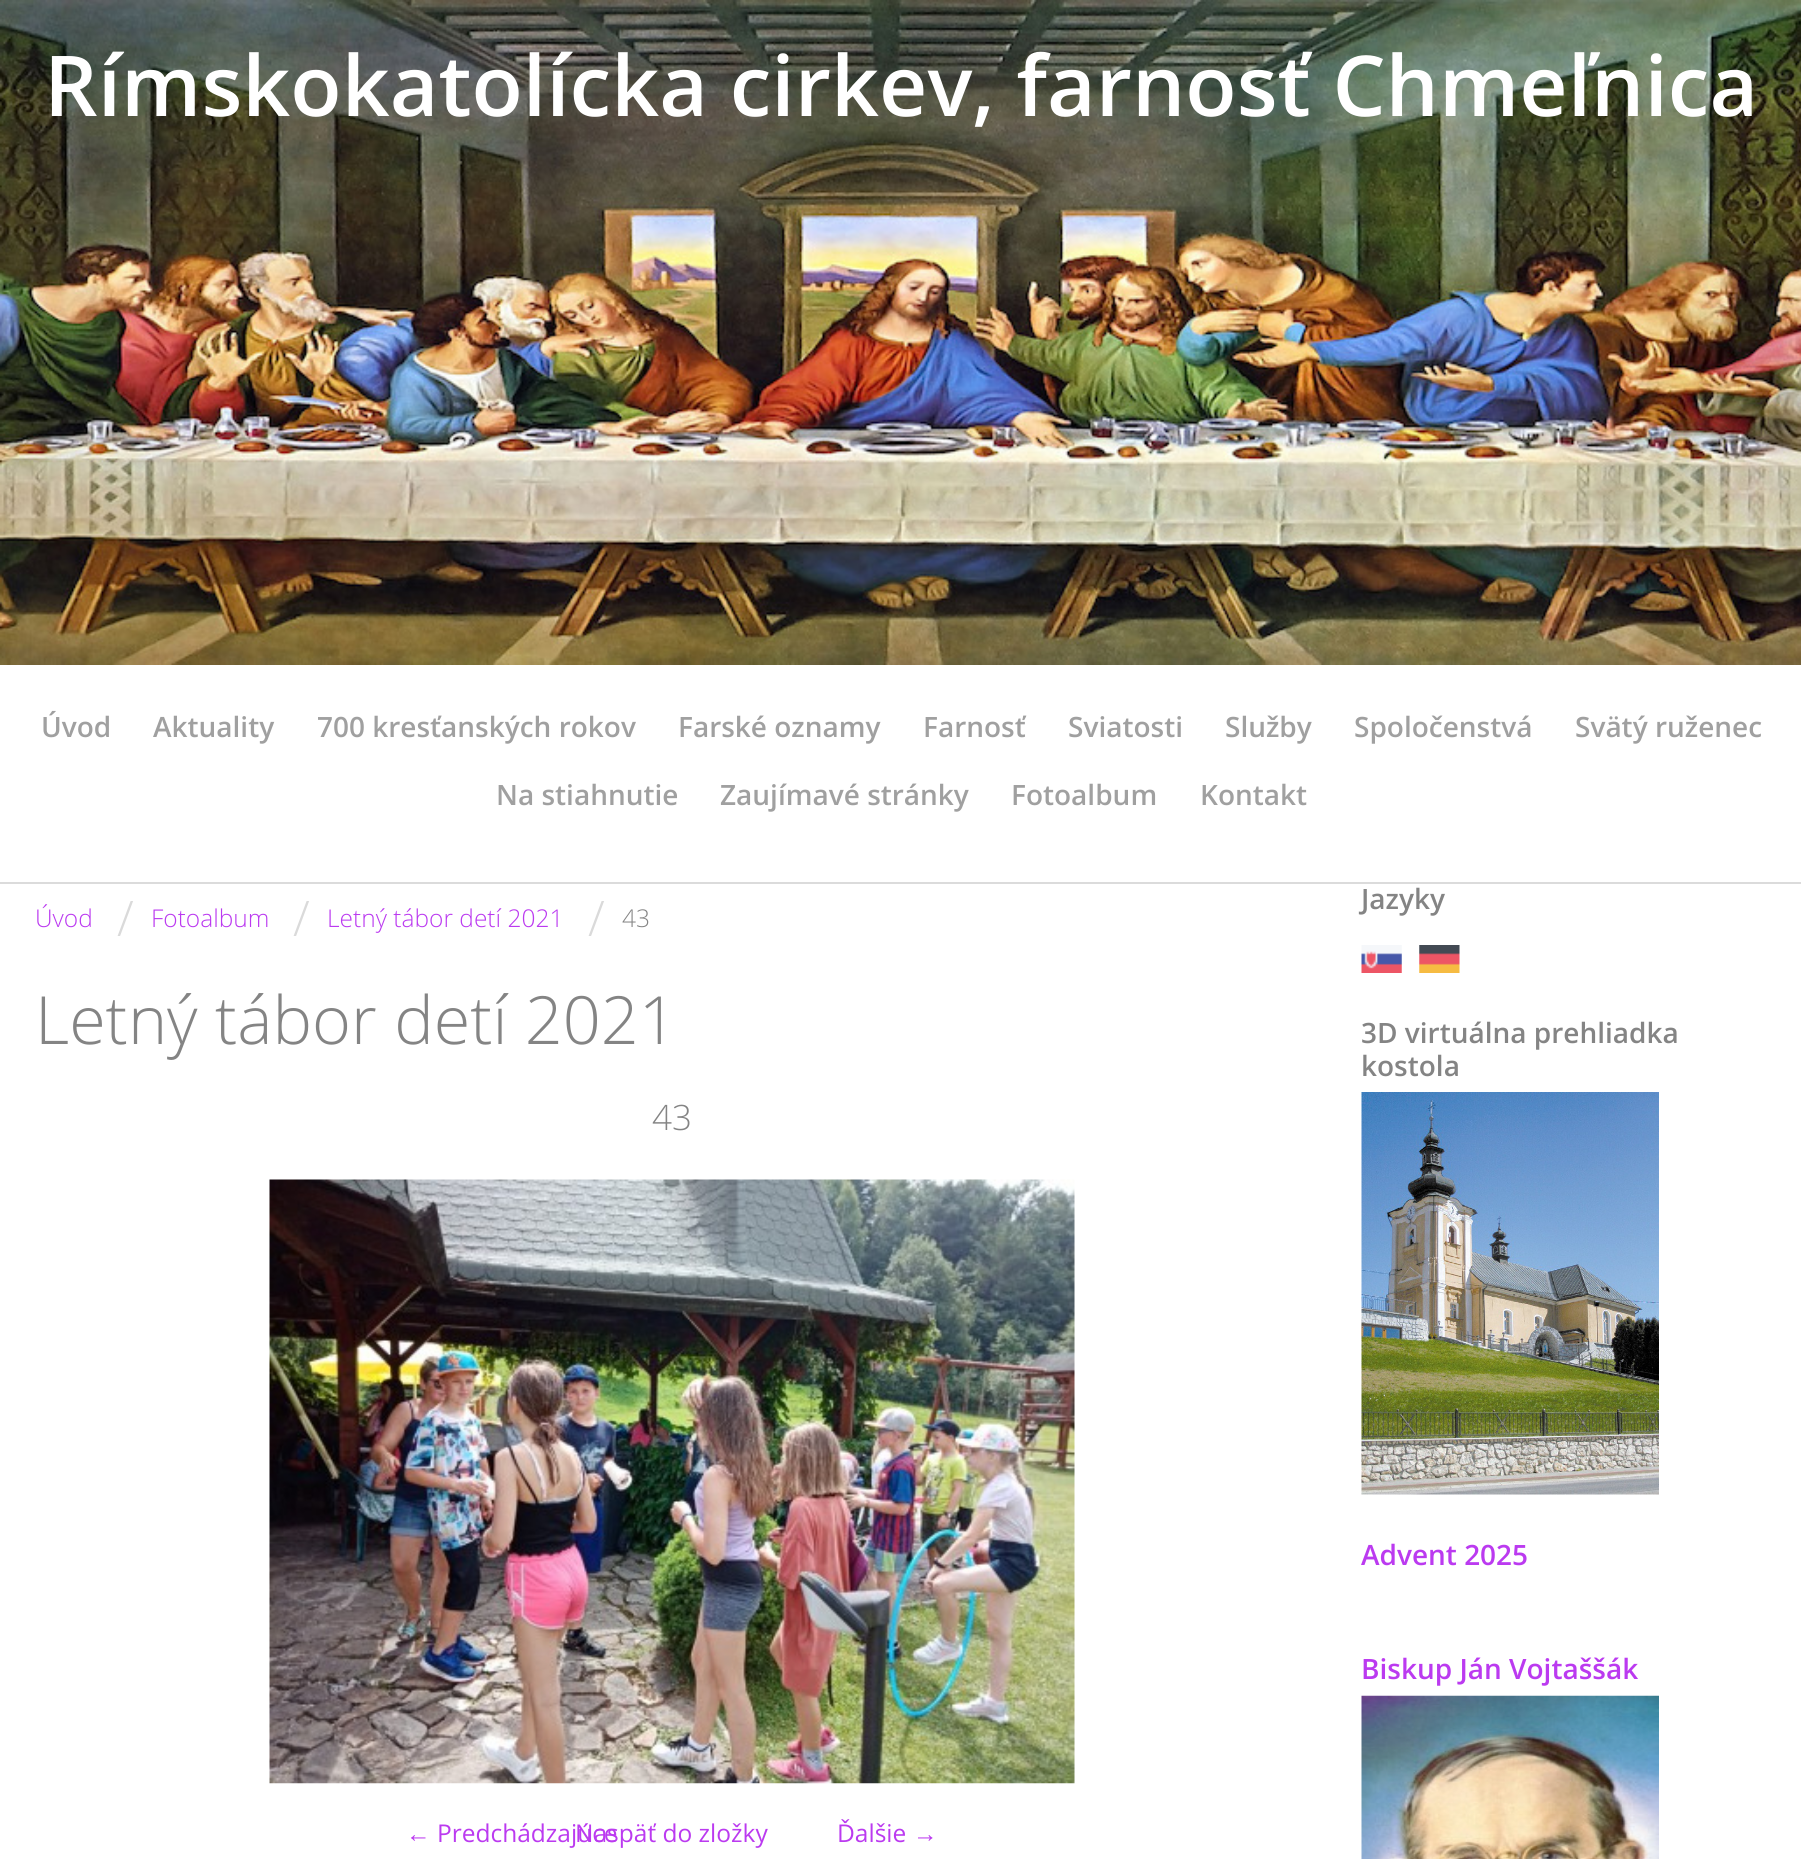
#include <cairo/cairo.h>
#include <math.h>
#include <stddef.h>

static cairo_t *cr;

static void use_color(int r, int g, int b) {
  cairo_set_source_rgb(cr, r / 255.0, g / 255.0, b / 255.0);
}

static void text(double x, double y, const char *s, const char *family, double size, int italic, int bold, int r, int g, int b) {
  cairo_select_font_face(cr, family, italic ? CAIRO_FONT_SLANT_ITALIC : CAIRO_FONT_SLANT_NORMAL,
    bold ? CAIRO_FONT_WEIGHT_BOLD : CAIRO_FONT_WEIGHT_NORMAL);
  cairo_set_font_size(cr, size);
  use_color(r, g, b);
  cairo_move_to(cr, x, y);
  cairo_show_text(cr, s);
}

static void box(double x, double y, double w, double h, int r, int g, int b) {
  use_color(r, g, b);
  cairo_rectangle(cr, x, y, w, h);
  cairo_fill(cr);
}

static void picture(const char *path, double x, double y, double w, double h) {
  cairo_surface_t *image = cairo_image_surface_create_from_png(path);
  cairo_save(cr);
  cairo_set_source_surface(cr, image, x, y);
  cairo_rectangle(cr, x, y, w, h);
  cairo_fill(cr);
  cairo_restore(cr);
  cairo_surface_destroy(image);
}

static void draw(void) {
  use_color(255, 255, 255);
  cairo_paint(cr);
  picture("img_01.png", 0, 0, 1801, 665);
  box(0, 882, 1801, 2, 219, 219, 219);
  picture("img_02.png", 269, 1179, 806, 605);
  picture("img_03.png", 1361, 945, 41, 28);
  picture("img_04.png", 1419, 945, 41, 28);
  picture("img_05.png", 1361, 1092, 298, 403);
  picture("img_06.png", 1361, 1695, 298, 164);
  text(44, 116, "Rímskokatolícka cirkev, farnosť Chmeľnica", "Open Sans SemiBold", 84, 0, 0, 255, 255, 255);
  text(41, 737, "Úvod", "Open Sans SemiBold", 28, 0, 0, 160, 160, 160);
  text(153, 737, "Aktuality", "Open Sans SemiBold", 28, 0, 0, 160, 160, 160);
  text(317, 737, "700 kresťanských rokov", "Open Sans SemiBold", 28, 0, 0, 160, 160, 160);
  text(678, 737, "Farské oznamy", "Open Sans SemiBold", 28, 0, 0, 160, 160, 160);
  text(923, 737, "Farnosť", "Open Sans SemiBold", 28, 0, 0, 160, 160, 160);
  text(1068, 737, "Sviatosti", "Open Sans SemiBold", 28, 0, 0, 160, 160, 160);
  text(1225, 737, "Služby", "Open Sans SemiBold", 28, 0, 0, 160, 160, 160);
  text(1354, 737, "Spoločenstvá", "Open Sans SemiBold", 28, 0, 0, 160, 160, 160);
  text(1575, 737, "Svätý ruženec", "Open Sans SemiBold", 28, 0, 0, 160, 160, 160);
  text(496, 805, "Na stiahnutie", "Open Sans SemiBold", 28, 0, 0, 160, 160, 160);
  text(720, 805, "Zaujímavé stránky", "Open Sans SemiBold", 28, 0, 0, 160, 160, 160);
  text(1011, 805, "Fotoalbum", "Open Sans SemiBold", 28, 0, 0, 160, 160, 160);
  text(1200, 805, "Kontakt", "Open Sans SemiBold", 28, 0, 0, 160, 160, 160);
  text(35, 927, "Úvod", "Open Sans Light", 24.5, 0, 0, 187, 58, 240);
  text(117, 936, "/", "Open Sans Light", 49, 0, 0, 218, 218, 218);
  text(151, 927, "Fotoalbum", "Open Sans Light", 24.5, 0, 0, 187, 58, 240);
  text(293, 936, "/", "Open Sans Light", 49, 0, 0, 218, 218, 218);
  text(327, 927, "Letný tábor detí 2021", "Open Sans Light", 24.5, 0, 0, 187, 58, 240);
  text(588, 936, "/", "Open Sans Light", 49, 0, 0, 218, 218, 218);
  text(622, 927, "43", "Open Sans Light", 24.5, 0, 0, 132, 132, 132);
  text(35, 1044, "Letný tábor detí 2021", "Open Sans Light", 66.5, 0, 0, 132, 132, 132);
  text(652, 1130, "43", "Open Sans Light", 35, 0, 0, 132, 132, 132);
  text(406, 1842, "←", "Liberation Sans", 24.5, 0, 0, 187, 58, 240);
  text(575, 1842, "Naspäť do zložky", "Open Sans", 24.5, 0, 0, 187, 58, 240);
  text(437, 1842, "Predchádzajúce", "Open Sans", 24.5, 0, 0, 187, 58, 240);
  text(837, 1842, "Ďalšie", "Open Sans", 24.5, 0, 0, 187, 58, 240);
  text(913, 1842, "→", "Liberation Sans", 24.5, 0, 0, 187, 58, 240);
  text(1361, 909, "Jazyky", "Open Sans SemiBold", 28, 0, 0, 132, 132, 132);
  text(1361, 1043, "3D virtuálna prehliadka", "Open Sans SemiBold", 28, 0, 0, 132, 132, 132);
  text(1361, 1076, "kostola", "Open Sans SemiBold", 28, 0, 0, 132, 132, 132);
  text(1361, 1565, "Advent 2025", "Open Sans SemiBold", 28, 0, 0, 187, 58, 240);
  text(1361, 1679, "Biskup Ján Vojtaššák", "Open Sans SemiBold", 28, 0, 0, 187, 58, 240);
}

int main(void) {
  cairo_surface_t *surface = cairo_image_surface_create(CAIRO_FORMAT_RGB24, 1801, 1859);
  cr = cairo_create(surface);
  cairo_font_options_t *options = cairo_font_options_create();
  cairo_font_options_set_hint_metrics(options, CAIRO_HINT_METRICS_OFF);
  cairo_font_options_set_hint_style(options, CAIRO_HINT_STYLE_NONE);
  cairo_set_font_options(cr, options);
  cairo_set_miter_limit(cr, 4);
  draw();
  cairo_surface_write_to_png(surface, "out.png");
  cairo_font_options_destroy(options);
  cairo_destroy(cr);
  cairo_surface_destroy(surface);
  return 0;
}
